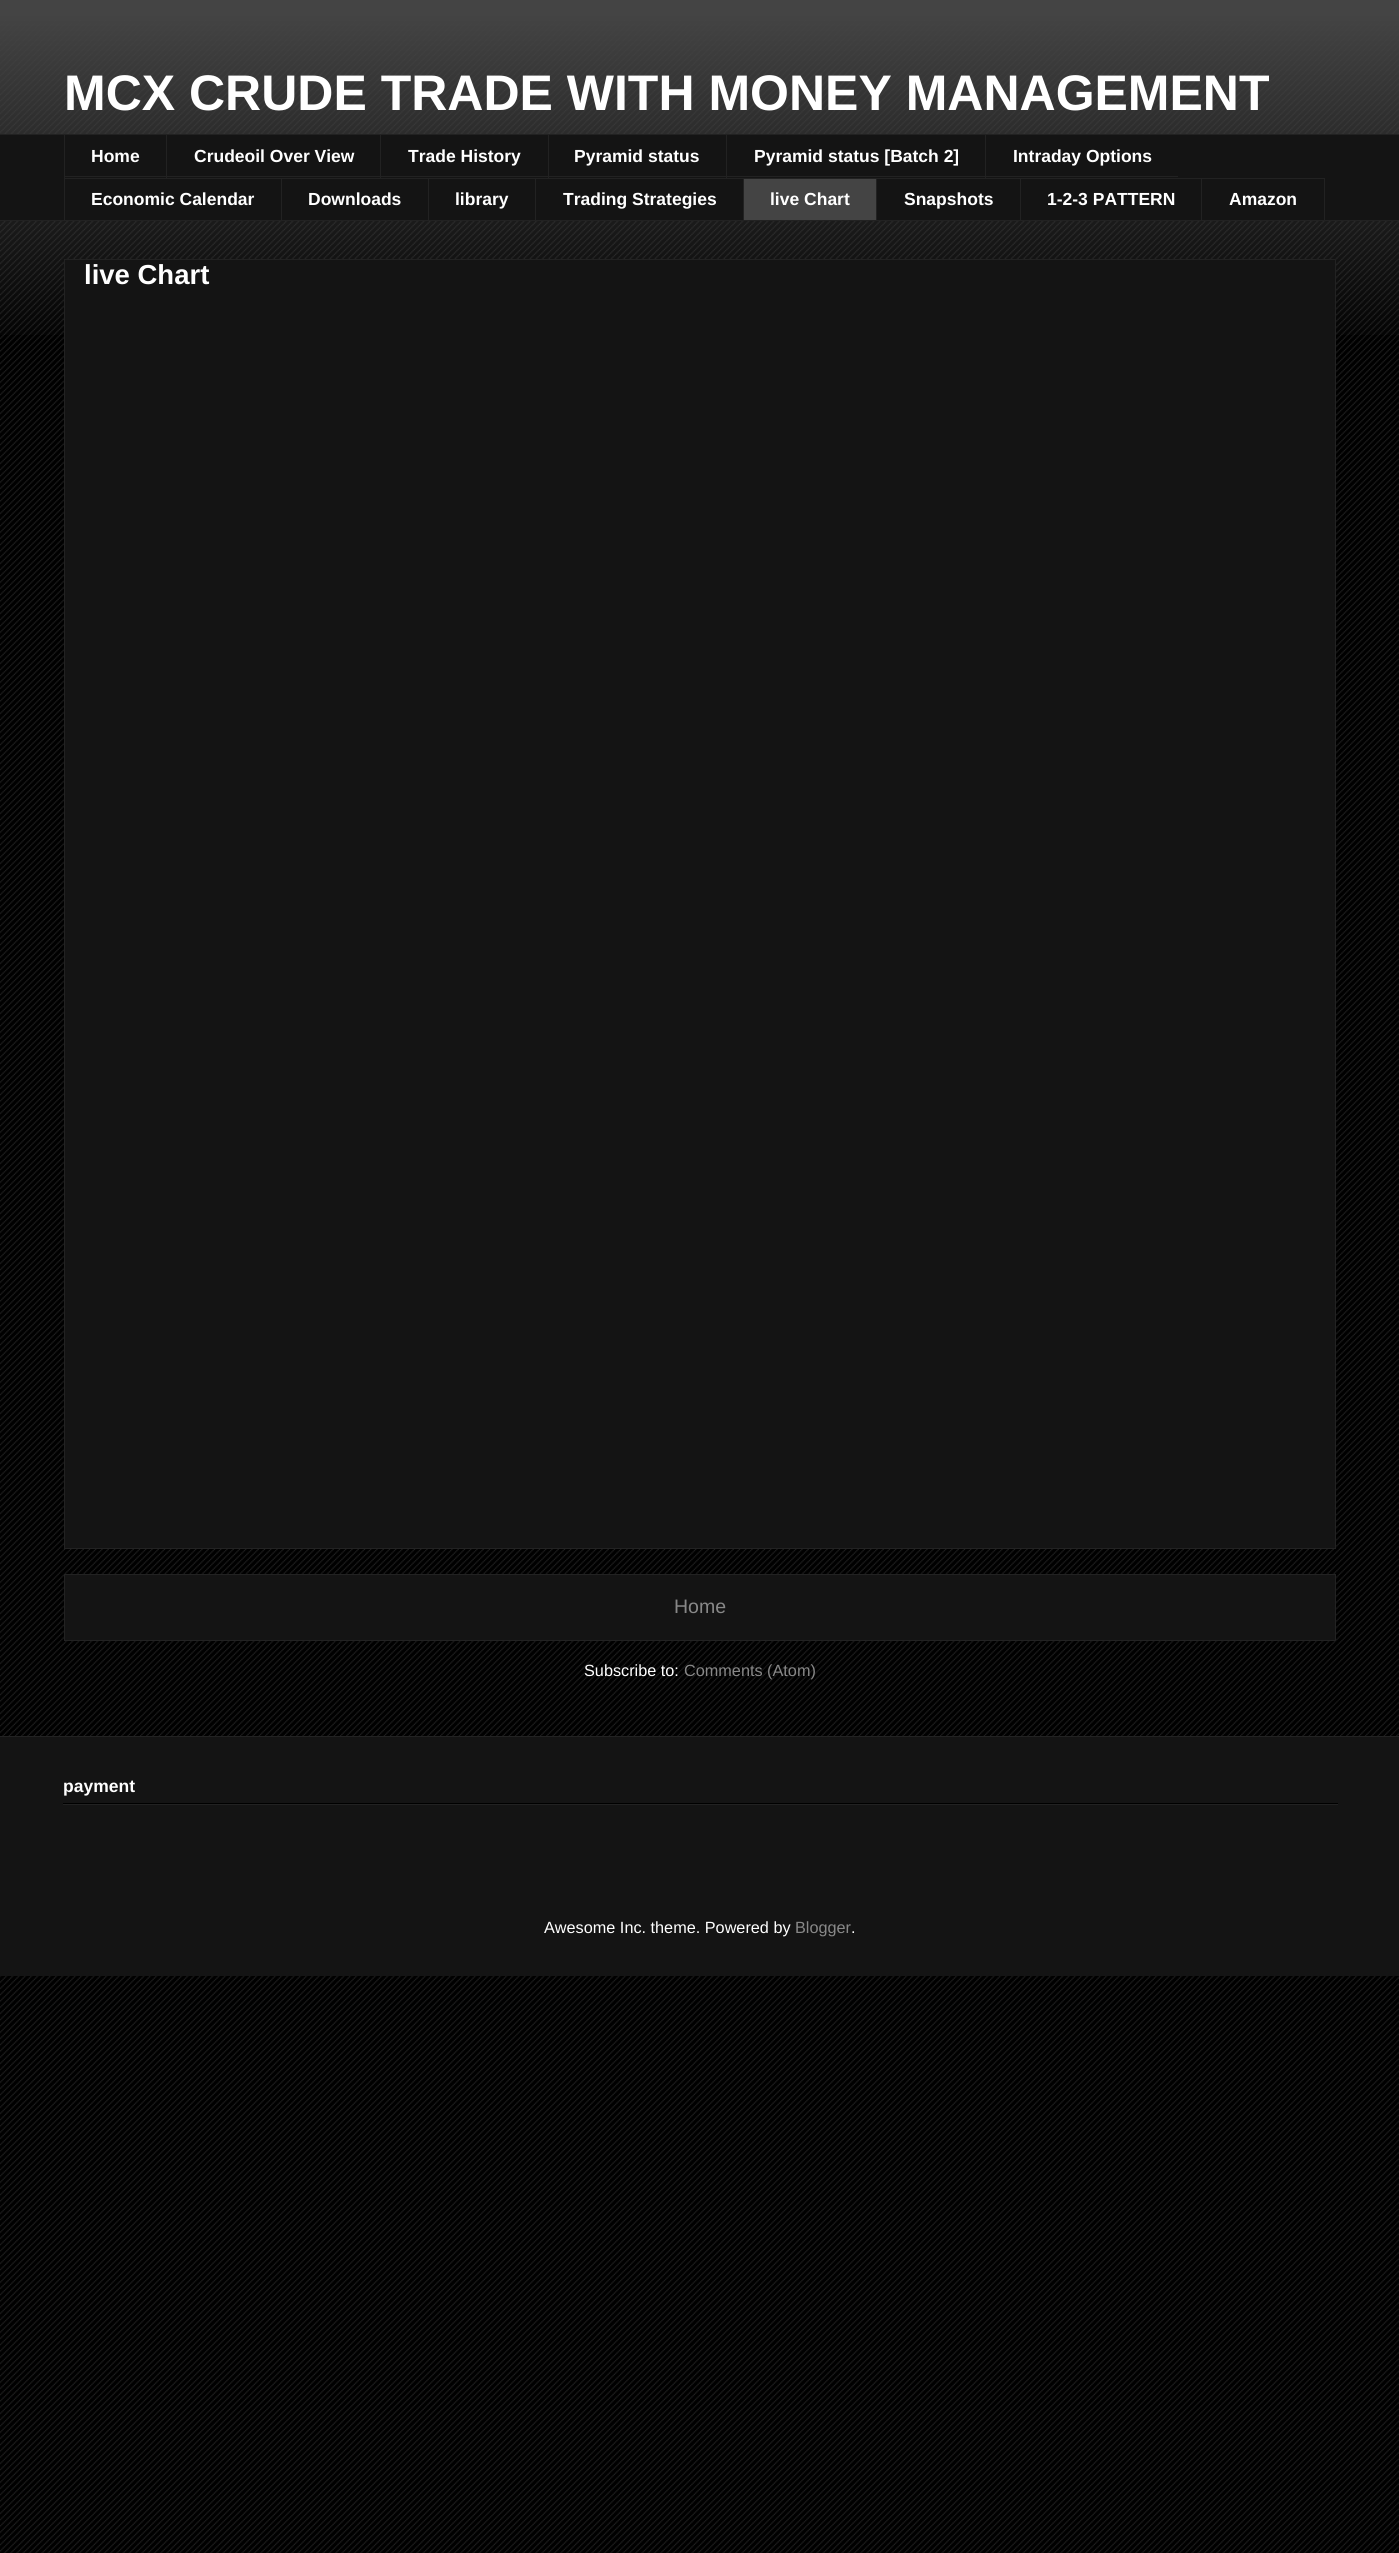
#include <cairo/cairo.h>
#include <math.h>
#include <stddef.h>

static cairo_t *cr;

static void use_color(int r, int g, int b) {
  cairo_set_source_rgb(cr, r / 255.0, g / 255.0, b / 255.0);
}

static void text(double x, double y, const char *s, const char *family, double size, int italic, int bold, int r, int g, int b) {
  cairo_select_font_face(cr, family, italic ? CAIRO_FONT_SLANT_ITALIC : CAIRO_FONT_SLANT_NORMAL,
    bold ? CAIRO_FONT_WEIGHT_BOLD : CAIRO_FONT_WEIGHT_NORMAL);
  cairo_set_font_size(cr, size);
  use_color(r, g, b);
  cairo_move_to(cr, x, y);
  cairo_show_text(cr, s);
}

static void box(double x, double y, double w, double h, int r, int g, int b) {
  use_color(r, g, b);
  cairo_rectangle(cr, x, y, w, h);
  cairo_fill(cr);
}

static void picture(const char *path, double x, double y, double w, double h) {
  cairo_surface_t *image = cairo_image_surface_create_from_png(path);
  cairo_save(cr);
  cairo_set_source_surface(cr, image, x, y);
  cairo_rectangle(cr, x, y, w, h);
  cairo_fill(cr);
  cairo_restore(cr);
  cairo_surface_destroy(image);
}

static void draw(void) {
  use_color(0, 0, 0);
  cairo_paint(cr);
  picture("img_01.png", 0, 16, 1399, 2537);
  picture("img_02.png", 0, 0, 1399, 335);
  box(0, 135, 1399, 85, 20, 20, 20);
  box(0, 134, 1399, 1, 34, 34, 34);
  box(64, 176, 1114, 1, 34, 34, 34);
  box(64, 134, 1, 44, 34, 34, 34);
  box(166, 134, 1, 44, 34, 34, 34);
  box(380, 134, 1, 44, 34, 34, 34);
  box(548, 134, 1, 44, 34, 34, 34);
  box(726, 134, 1, 44, 34, 34, 34);
  box(985, 134, 1, 44, 34, 34, 34);
  box(64, 178, 1137, 1, 34, 34, 34);
  box(64, 178, 1, 43, 34, 34, 34);
  box(281, 178, 1, 43, 34, 34, 34);
  box(428, 178, 1, 43, 34, 34, 34);
  box(535, 178, 1, 43, 34, 34, 34);
  box(744, 179, 132, 41, 68, 68, 68);
  box(743, 178, 1, 43, 34, 34, 34);
  box(876, 178, 1, 43, 34, 34, 34);
  box(1020, 178, 1, 43, 34, 34, 34);
  cairo_rectangle(cr, 1201.5, 178.5, 123, 42);
  cairo_set_line_width(cr, 1);
  cairo_stroke(cr);
  box(0, 220, 1399, 1, 34, 34, 34);
  use_color(20, 20, 20);
  cairo_rectangle(cr, 64.5, 259.5, 1271, 1289);
  cairo_fill_preserve(cr);
  use_color(34, 34, 34);
  cairo_stroke(cr);
  use_color(20, 20, 20);
  cairo_rectangle(cr, 64.5, 1574.5, 1271, 66);
  cairo_fill_preserve(cr);
  use_color(34, 34, 34);
  cairo_stroke(cr);
  box(0, 1737, 1399, 239, 20, 20, 20);
  box(0, 1736, 1399, 1, 34, 34, 34);
  box(63, 1803, 1275, 1, 0, 0, 0);
  box(63, 1804, 1275, 1, 34, 34, 34);
  text(64, 110, "MCX CRUDE TRADE WITH MONEY MANAGEMENT", "Liberation Sans", 50, 0, 1, 255, 255, 255);
  text(91, 162, "Home", "Liberation Sans", 17.5, 0, 1, 255, 255, 255);
  text(194, 162, "Crudeoil Over View", "Liberation Sans", 17.5, 0, 1, 255, 255, 255);
  text(408, 162, "Trade History", "Liberation Sans", 17.5, 0, 1, 255, 255, 255);
  text(574, 162, "Pyramid status", "Liberation Sans", 17.5, 0, 1, 255, 255, 255);
  text(754, 162, "Pyramid status [Batch 2]", "Liberation Sans", 17.5, 0, 1, 255, 255, 255);
  text(1013, 162, "Intraday Options", "Liberation Sans", 17.5, 0, 1, 255, 255, 255);
  text(91, 205, "Economic Calendar", "Liberation Sans", 17.5, 0, 1, 255, 255, 255);
  text(308, 205, "Downloads", "Liberation Sans", 17.5, 0, 1, 255, 255, 255);
  text(455, 205, "library", "Liberation Sans", 17.5, 0, 1, 255, 255, 255);
  text(563, 205, "Trading Strategies", "Liberation Sans", 17.5, 0, 1, 255, 255, 255);
  text(770, 205, "live Chart", "Liberation Sans", 17.5, 0, 1, 255, 255, 255);
  text(904, 205, "Snapshots", "Liberation Sans", 17.5, 0, 1, 255, 255, 255);
  text(1047, 205, "1-2-3 PATTERN", "Liberation Sans", 17.5, 0, 1, 255, 255, 255);
  text(1229, 205, "Amazon", "Liberation Sans", 17.5, 0, 1, 255, 255, 255);
  text(84, 284, "live Chart", "Liberation Sans", 27.5, 0, 1, 255, 255, 255);
  text(674, 1613, "Home", "Liberation Sans", 19.5, 0, 0, 136, 136, 136);
  text(584, 1676, "Subscribe to:", "Liberation Sans", 16.25, 0, 0, 255, 255, 255);
  text(684, 1676, "Comments (Atom)", "Liberation Sans", 16.25, 0, 0, 136, 136, 136);
  text(63, 1792, "payment", "Liberation Sans", 17.5, 0, 1, 255, 255, 255);
  text(544, 1933, "Awesome Inc. theme. Powered by", "Liberation Sans", 16.25, 0, 0, 255, 255, 255);
  text(795, 1933, "Blogger", "Liberation Sans", 16.25, 0, 0, 136, 136, 136);
  text(851, 1933, ".", "Liberation Sans", 16.25, 0, 0, 255, 255, 255);
}

int main(void) {
  cairo_surface_t *surface = cairo_image_surface_create(CAIRO_FORMAT_RGB24, 1399, 2553);
  cr = cairo_create(surface);
  cairo_font_options_t *options = cairo_font_options_create();
  cairo_font_options_set_hint_metrics(options, CAIRO_HINT_METRICS_OFF);
  cairo_font_options_set_hint_style(options, CAIRO_HINT_STYLE_NONE);
  cairo_set_font_options(cr, options);
  cairo_set_miter_limit(cr, 4);
  draw();
  cairo_surface_write_to_png(surface, "out.png");
  cairo_font_options_destroy(options);
  cairo_destroy(cr);
  cairo_surface_destroy(surface);
  return 0;
}
